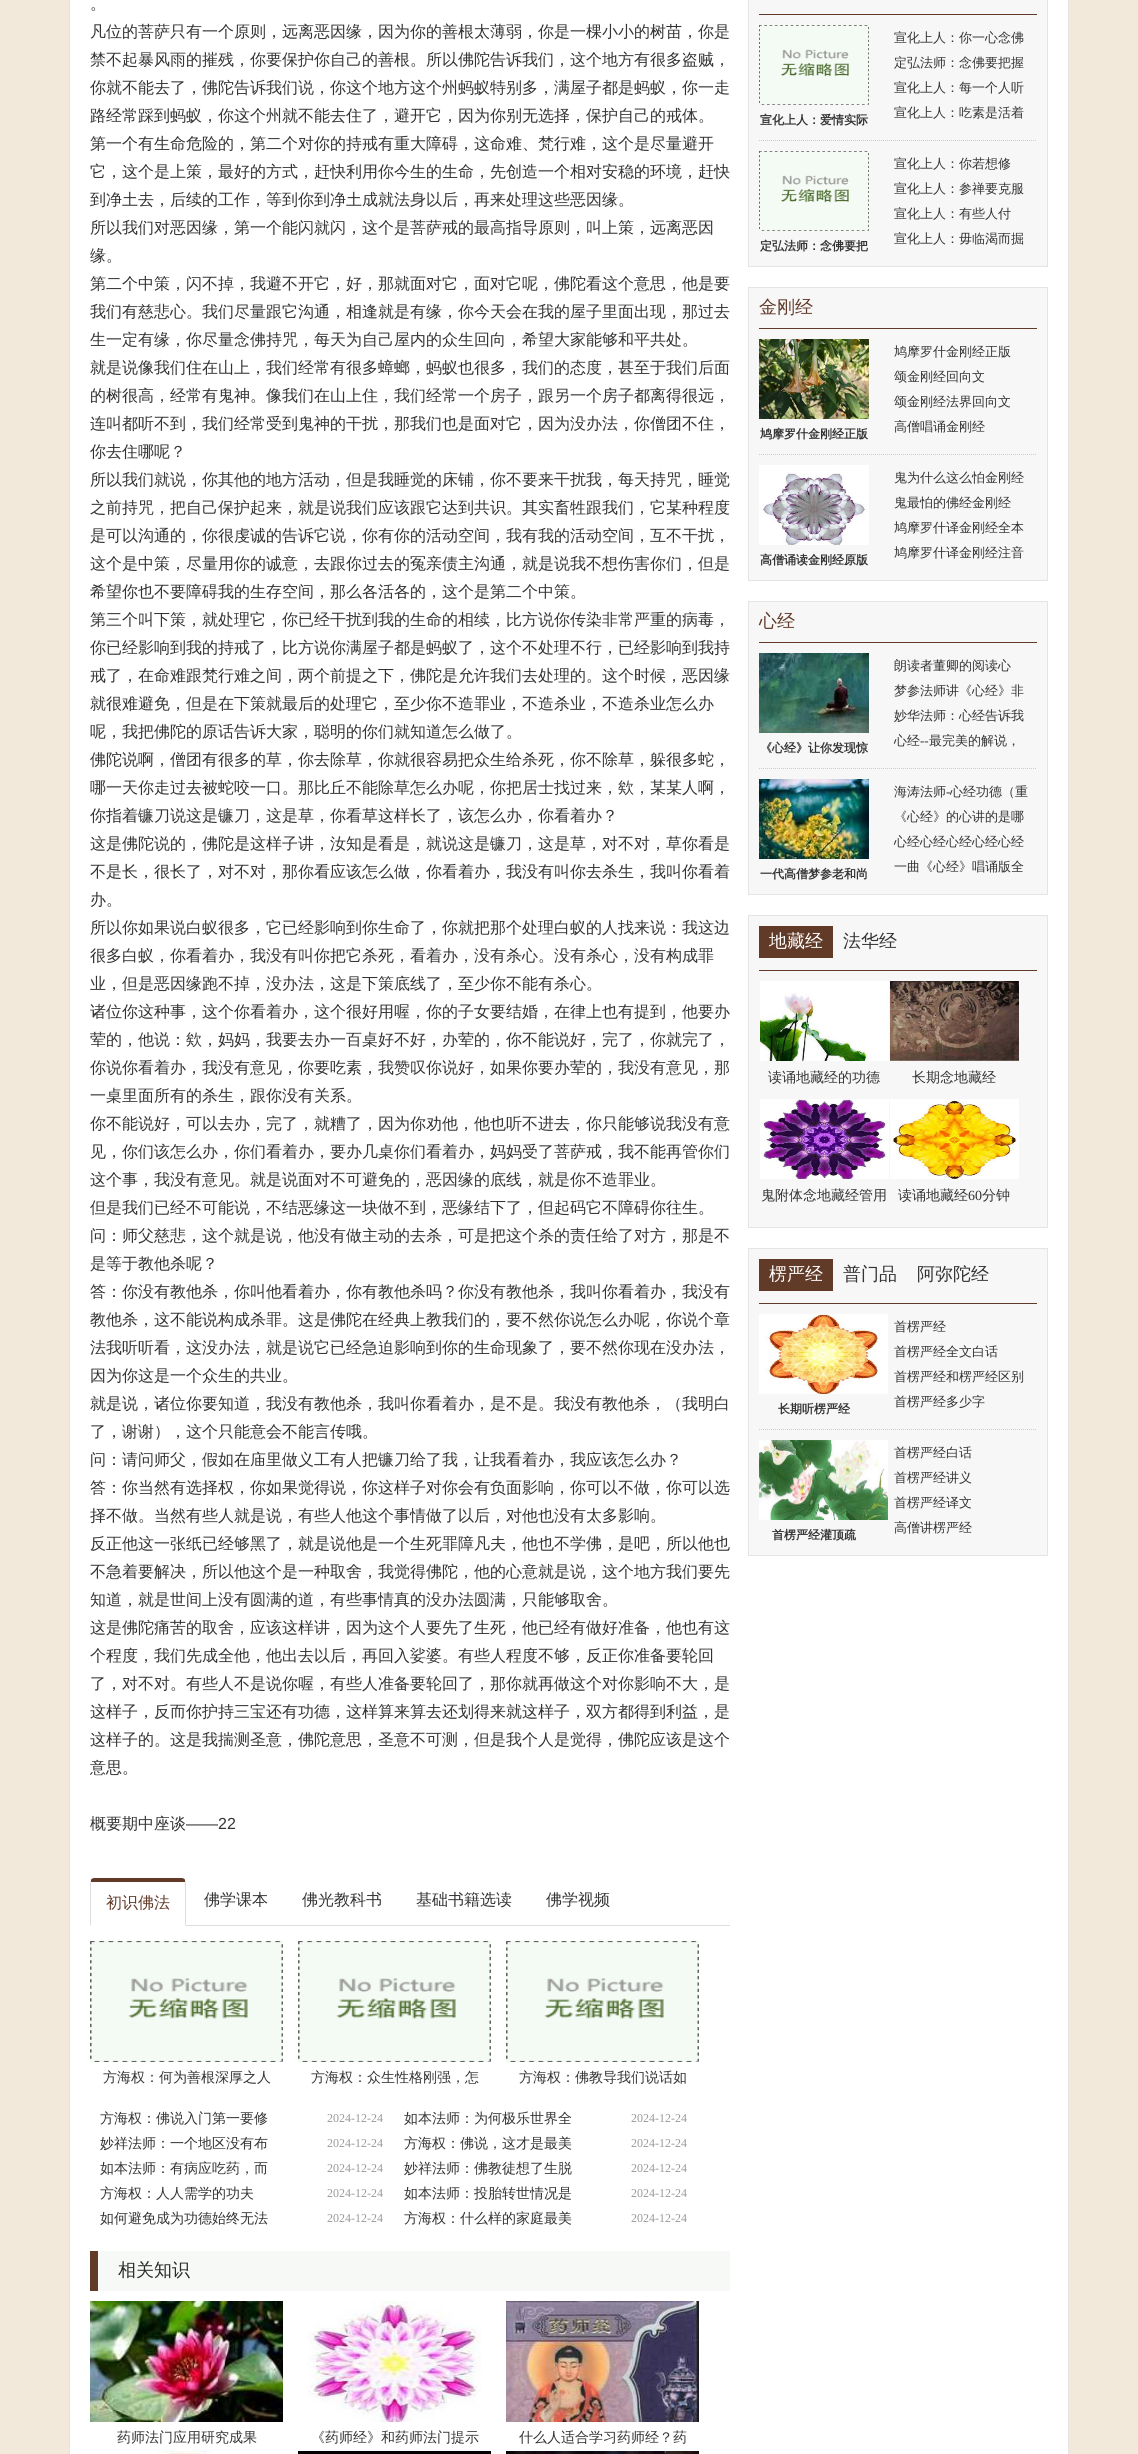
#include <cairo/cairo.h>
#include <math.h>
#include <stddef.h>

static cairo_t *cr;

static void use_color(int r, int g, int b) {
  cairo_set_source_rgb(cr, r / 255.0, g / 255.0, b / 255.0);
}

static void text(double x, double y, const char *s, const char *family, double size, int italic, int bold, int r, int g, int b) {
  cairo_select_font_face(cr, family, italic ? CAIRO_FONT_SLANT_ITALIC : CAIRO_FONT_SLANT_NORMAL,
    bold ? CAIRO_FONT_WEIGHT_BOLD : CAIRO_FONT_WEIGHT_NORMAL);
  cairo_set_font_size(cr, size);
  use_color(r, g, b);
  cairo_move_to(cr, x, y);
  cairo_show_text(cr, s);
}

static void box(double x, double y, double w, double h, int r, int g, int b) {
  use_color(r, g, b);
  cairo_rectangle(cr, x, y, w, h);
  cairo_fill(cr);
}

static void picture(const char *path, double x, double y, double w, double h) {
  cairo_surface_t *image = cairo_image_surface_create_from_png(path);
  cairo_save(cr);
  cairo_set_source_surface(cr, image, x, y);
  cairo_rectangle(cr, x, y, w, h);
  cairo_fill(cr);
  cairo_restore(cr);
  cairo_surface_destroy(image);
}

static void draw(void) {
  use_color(242, 233, 218);
  cairo_paint(cr);
  box(70, 0, 998, 2454, 255, 255, 255);
  box(1068, 0, 1, 2454, 228, 228, 228);
  box(69, 0, 1, 2454, 228, 228, 228);
  box(186, 1925, 544, 1, 221, 221, 221);
  use_color(97, 58, 40);
  cairo_new_path(cr);
  cairo_move_to(cr, 94, 1878);
  cairo_curve_to(cr, 93, 1878, 91, 1879, 91, 1880);
  cairo_line_to(cr, 91, 1882);
  cairo_line_to(cr, 185, 1882);
  cairo_line_to(cr, 185, 1880);
  cairo_curve_to(cr, 185, 1879, 183, 1878, 182, 1878);
  cairo_close_path(cr);
  cairo_fill(cr);
  use_color(221, 221, 221);
  cairo_new_path(cr);
  cairo_move_to(cr, 186, 1926);
  cairo_line_to(cr, 186, 1882);
  cairo_line_to(cr, 185, 1880);
  cairo_line_to(cr, 185, 1882);
  cairo_line_to(cr, 185, 1925);
  cairo_close_path(cr);
  cairo_fill(cr);
  cairo_new_path(cr);
  cairo_move_to(cr, 90, 1926);
  cairo_line_to(cr, 91, 1925);
  cairo_line_to(cr, 91, 1882);
  cairo_line_to(cr, 91, 1880);
  cairo_line_to(cr, 90, 1882);
  cairo_close_path(cr);
  cairo_fill(cr);
  picture("img_01.png", 90, 1941, 193, 121);
  picture("img_01.png", 298, 1941, 193, 121);
  picture("img_01.png", 506, 1941, 193, 121);
  box(98, 2251, 632, 40, 247, 249, 247);
  box(90, 2251, 8, 40, 97, 58, 40);
  picture("img_02.png", 90, 2301, 193, 121);
  picture("img_03.png", 307, 2301, 174, 121);
  picture("img_04.png", 506, 2301, 193, 121);
  picture("img_05.png", 158, 2451, 56, 3);
  picture("img_06.png", 298, 2451, 193, 3);
  picture("img_07.png", 506, 2451, 193, 3);
  use_color(247, 247, 247);
  cairo_rectangle(cr, 748.5, -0.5, 299, 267);
  cairo_fill_preserve(cr);
  use_color(228, 228, 228);
  cairo_set_line_width(cr, 1);
  cairo_stroke(cr);
  box(759, 14, 278, 1, 97, 58, 40);
  picture("img_08.png", 759, 25, 110, 80);
  cairo_new_path(cr);
  cairo_move_to(cr, 759, 140.5);
  cairo_line_to(cr, 1037, 140.5);
  use_color(204, 204, 204);
  cairo_set_dash(cr, (double[]){1, 1}, 2, 0);
  cairo_stroke(cr);
  picture("img_09.png", 759, 151, 110, 80);
  use_color(247, 247, 247);
  cairo_rectangle(cr, 748.5, 287.5, 299, 293);
  cairo_fill_preserve(cr);
  use_color(228, 228, 228);
  cairo_set_dash(cr, NULL, 0, 0);
  cairo_stroke(cr);
  box(759, 328, 278, 1, 97, 58, 40);
  picture("img_10.png", 759, 339, 110, 80);
  cairo_new_path(cr);
  cairo_move_to(cr, 759, 454.5);
  cairo_line_to(cr, 1037, 454.5);
  use_color(204, 204, 204);
  cairo_set_dash(cr, (double[]){1, 1}, 2, 0);
  cairo_stroke(cr);
  picture("img_11.png", 759, 465, 110, 80);
  use_color(247, 247, 247);
  cairo_rectangle(cr, 748.5, 601.5, 299, 293);
  cairo_fill_preserve(cr);
  use_color(228, 228, 228);
  cairo_set_dash(cr, NULL, 0, 0);
  cairo_stroke(cr);
  box(759, 642, 278, 1, 97, 58, 40);
  picture("img_12.png", 759, 653, 110, 80);
  cairo_new_path(cr);
  cairo_move_to(cr, 759, 768.5);
  cairo_line_to(cr, 1037, 768.5);
  use_color(204, 204, 204);
  cairo_set_dash(cr, (double[]){1, 1}, 2, 0);
  cairo_stroke(cr);
  picture("img_13.png", 759, 779, 110, 80);
  use_color(247, 247, 247);
  cairo_rectangle(cr, 748.5, 915.5, 299, 312);
  cairo_fill_preserve(cr);
  use_color(228, 228, 228);
  cairo_set_dash(cr, NULL, 0, 0);
  cairo_stroke(cr);
  box(759, 970, 278, 1, 97, 58, 40);
  box(759, 926, 74, 32, 97, 58, 40);
  picture("img_14.png", 760, 981, 129, 80);
  picture("img_15.png", 890, 981, 129, 80);
  picture("img_16.png", 760, 1099, 129, 80);
  picture("img_17.png", 890, 1099, 129, 80);
  use_color(247, 247, 247);
  cairo_rectangle(cr, 748.5, 1248.5, 299, 307);
  cairo_fill_preserve(cr);
  use_color(228, 228, 228);
  cairo_stroke(cr);
  box(759, 1303, 278, 1, 97, 58, 40);
  box(759, 1259, 74, 32, 97, 58, 40);
  picture("img_18.png", 759, 1314, 129, 80);
  cairo_new_path(cr);
  cairo_move_to(cr, 759, 1429.5);
  cairo_line_to(cr, 1037, 1429.5);
  use_color(204, 204, 204);
  cairo_set_dash(cr, (double[]){1, 1}, 2, 0);
  cairo_stroke(cr);
  picture("img_19.png", 759, 1440, 129, 80);
  text(90, 9, "。", "WenQuanYi Zen Hei Medium", 16, 0, 0, 51, 51, 51);
  text(90, 37, "凡位的菩萨只有一个原则，远离恶因缘，因为你的善根太薄弱，你是一棵小小的树苗，你是", "WenQuanYi Zen Hei Medium", 16, 0, 0, 51, 51, 51);
  text(90, 65, "禁不起暴风雨的摧残，你要保护你自己的善根。所以佛陀告诉我们，这个地方有很多盗贼，", "WenQuanYi Zen Hei Medium", 16, 0, 0, 51, 51, 51);
  text(90, 93, "你就不能去了，佛陀告诉我们说，你这个地方这个州蚂蚁特别多，满屋子都是蚂蚁，你一走", "WenQuanYi Zen Hei Medium", 16, 0, 0, 51, 51, 51);
  text(90, 121, "路经常踩到蚂蚁，你这个州就不能去住了，避开它，因为你别无选择，保护自己的戒体。", "WenQuanYi Zen Hei Medium", 16, 0, 0, 51, 51, 51);
  text(90, 149, "第一个有生命危险的，第二个对你的持戒有重大障碍，这命难、梵行难，这个是尽量避开", "WenQuanYi Zen Hei Medium", 16, 0, 0, 51, 51, 51);
  text(90, 177, "它，这个是上策，最好的方式，赶快利用你今生的生命，先创造一个相对安稳的环境，赶快", "WenQuanYi Zen Hei Medium", 16, 0, 0, 51, 51, 51);
  text(90, 205, "到净土去，后续的工作，等到你到净土成就法身以后，再来处理这些恶因缘。", "WenQuanYi Zen Hei Medium", 16, 0, 0, 51, 51, 51);
  text(90, 233, "所以我们对恶因缘，第一个能闪就闪，这个是菩萨戒的最高指导原则，叫上策，远离恶因", "WenQuanYi Zen Hei Medium", 16, 0, 0, 51, 51, 51);
  text(90, 261, "缘。", "WenQuanYi Zen Hei Medium", 16, 0, 0, 51, 51, 51);
  text(90, 289, "第二个中策，闪不掉，我避不开它，好，那就面对它，面对它呢，佛陀看这个意思，他是要", "WenQuanYi Zen Hei Medium", 16, 0, 0, 51, 51, 51);
  text(90, 317, "我们有慈悲心。我们尽量跟它沟通，相逢就是有缘，你今天会在我的屋子里面出现，那过去", "WenQuanYi Zen Hei Medium", 16, 0, 0, 51, 51, 51);
  text(90, 345, "生一定有缘，你尽量念佛持咒，每天为自己屋内的众生回向，希望大家能够和平共处。", "WenQuanYi Zen Hei Medium", 16, 0, 0, 51, 51, 51);
  text(90, 373, "就是说像我们住在山上，我们经常有很多蟑螂，蚂蚁也很多，我们的态度，甚至于我们后面", "WenQuanYi Zen Hei Medium", 16, 0, 0, 51, 51, 51);
  text(90, 401, "的树很高，经常有鬼神。像我们在山上住，我们经常一个房子，跟另一个房子都离得很远，", "WenQuanYi Zen Hei Medium", 16, 0, 0, 51, 51, 51);
  text(90, 429, "连叫都听不到，我们经常受到鬼神的干扰，那我们也是面对它，因为没办法，你僧团不住，", "WenQuanYi Zen Hei Medium", 16, 0, 0, 51, 51, 51);
  text(90, 457, "你去住哪呢？", "WenQuanYi Zen Hei Medium", 16, 0, 0, 51, 51, 51);
  text(90, 485, "所以我们就说，你其他的地方活动，但是我睡觉的床铺，你不要来干扰我，每天持咒，睡觉", "WenQuanYi Zen Hei Medium", 16, 0, 0, 51, 51, 51);
  text(90, 513, "之前持咒，把自己保护起来，就是说我们应该跟它达到共识。其实畜牲跟我们，它某种程度", "WenQuanYi Zen Hei Medium", 16, 0, 0, 51, 51, 51);
  text(90, 541, "是可以沟通的，你很虔诚的告诉它说，你有你的活动空间，我有我的活动空间，互不干扰，", "WenQuanYi Zen Hei Medium", 16, 0, 0, 51, 51, 51);
  text(90, 569, "这个是中策，尽量用你的诚意，去跟你过去的冤亲债主沟通，就是说我不想伤害你们，但是", "WenQuanYi Zen Hei Medium", 16, 0, 0, 51, 51, 51);
  text(90, 597, "希望你也不要障碍我的生存空间，那么各活各的，这个是第二个中策。", "WenQuanYi Zen Hei Medium", 16, 0, 0, 51, 51, 51);
  text(90, 625, "第三个叫下策，就处理它，你已经干扰到我的生命的相续，比方说你传染非常严重的病毒，", "WenQuanYi Zen Hei Medium", 16, 0, 0, 51, 51, 51);
  text(90, 653, "你已经影响到我的持戒了，比方说你满屋子都是蚂蚁了，这个不处理不行，已经影响到我持", "WenQuanYi Zen Hei Medium", 16, 0, 0, 51, 51, 51);
  text(90, 681, "戒了，在命难跟梵行难之间，两个前提之下，佛陀是允许我们去处理的。这个时候，恶因缘", "WenQuanYi Zen Hei Medium", 16, 0, 0, 51, 51, 51);
  text(90, 709, "就很难避免，但是在下策就最后的处理它，至少你不造罪业，不造杀业，不造杀业怎么办", "WenQuanYi Zen Hei Medium", 16, 0, 0, 51, 51, 51);
  text(90, 737, "呢，我把佛陀的原话告诉大家，聪明的你们就知道怎么做了。", "WenQuanYi Zen Hei Medium", 16, 0, 0, 51, 51, 51);
  text(90, 765, "佛陀说啊，僧团有很多的草，你去除草，你就很容易把众生给杀死，你不除草，躲很多蛇，", "WenQuanYi Zen Hei Medium", 16, 0, 0, 51, 51, 51);
  text(90, 793, "哪一天你走过去被蛇咬一口。那比丘不能除草怎么办呢，你把居士找过来，欸，某某人啊，", "WenQuanYi Zen Hei Medium", 16, 0, 0, 51, 51, 51);
  text(90, 821, "你指着镰刀说这是镰刀，这是草，你看草这样长了，该怎么办，你看着办？", "WenQuanYi Zen Hei Medium", 16, 0, 0, 51, 51, 51);
  text(90, 849, "这是佛陀说的，佛陀是这样子讲，汝知是看是，就说这是镰刀，这是草，对不对，草你看是", "WenQuanYi Zen Hei Medium", 16, 0, 0, 51, 51, 51);
  text(90, 877, "不是长，很长了，对不对，那你看应该怎么做，你看着办，我没有叫你去杀生，我叫你看着", "WenQuanYi Zen Hei Medium", 16, 0, 0, 51, 51, 51);
  text(90, 905, "办。", "WenQuanYi Zen Hei Medium", 16, 0, 0, 51, 51, 51);
  text(90, 933, "所以你如果说白蚁很多，它已经影响到你生命了，你就把那个处理白蚁的人找来说：我这边", "WenQuanYi Zen Hei Medium", 16, 0, 0, 51, 51, 51);
  text(90, 961, "很多白蚁，你看着办，我没有叫你把它杀死，看着办，没有杀心。没有杀心，没有构成罪", "WenQuanYi Zen Hei Medium", 16, 0, 0, 51, 51, 51);
  text(90, 989, "业，但是恶因缘跑不掉，没办法，这是下策底线了，至少你不能有杀心。", "WenQuanYi Zen Hei Medium", 16, 0, 0, 51, 51, 51);
  text(90, 1017, "诸位你这种事，这个你看着办，这个很好用喔，你的子女要结婚，在律上也有提到，他要办", "WenQuanYi Zen Hei Medium", 16, 0, 0, 51, 51, 51);
  text(90, 1045, "荤的，他说：欸，妈妈，我要去办一百桌好不好，办荤的，你不能说好，完了，你就完了，", "WenQuanYi Zen Hei Medium", 16, 0, 0, 51, 51, 51);
  text(90, 1073, "你说你看着办，我没有意见，你要吃素，我赞叹你说好，如果你要办荤的，我没有意见，那", "WenQuanYi Zen Hei Medium", 16, 0, 0, 51, 51, 51);
  text(90, 1101, "一桌里面所有的杀生，跟你没有关系。", "WenQuanYi Zen Hei Medium", 16, 0, 0, 51, 51, 51);
  text(90, 1129, "你不能说好，可以去办，完了，就糟了，因为你劝他，他也听不进去，你只能够说我没有意", "WenQuanYi Zen Hei Medium", 16, 0, 0, 51, 51, 51);
  text(90, 1157, "见，你们该怎么办，你们看着办，要办几桌你们看着办，妈妈受了菩萨戒，我不能再管你们", "WenQuanYi Zen Hei Medium", 16, 0, 0, 51, 51, 51);
  text(90, 1185, "这个事，我没有意见。就是说面对不可避免的，恶因缘的底线，就是你不造罪业。", "WenQuanYi Zen Hei Medium", 16, 0, 0, 51, 51, 51);
  text(90, 1213, "但是我们已经不可能说，不结恶缘这一块做不到，恶缘结下了，但起码它不障碍你往生。", "WenQuanYi Zen Hei Medium", 16, 0, 0, 51, 51, 51);
  text(90, 1241, "问：师父慈悲，这个就是说，他没有做主动的去杀，可是把这个杀的责任给了对方，那是不", "WenQuanYi Zen Hei Medium", 16, 0, 0, 51, 51, 51);
  text(90, 1269, "是等于教他杀呢？", "WenQuanYi Zen Hei Medium", 16, 0, 0, 51, 51, 51);
  text(90, 1297, "答：你没有教他杀，你叫他看着办，你有教他杀吗？你没有教他杀，我叫你看着办，我没有", "WenQuanYi Zen Hei Medium", 16, 0, 0, 51, 51, 51);
  text(90, 1325, "教他杀，这不能说构成杀罪。这是佛陀在经典上教我们的，要不然你说怎么办呢，你说个章", "WenQuanYi Zen Hei Medium", 16, 0, 0, 51, 51, 51);
  text(90, 1353, "法我听听看，这没办法，就是说它已经急迫影响到你的生命现象了，要不然你现在没办法，", "WenQuanYi Zen Hei Medium", 16, 0, 0, 51, 51, 51);
  text(90, 1381, "因为你这是一个众生的共业。", "WenQuanYi Zen Hei Medium", 16, 0, 0, 51, 51, 51);
  text(90, 1409, "就是说，诸位你要知道，我没有教他杀，我叫你看着办，是不是。我没有教他杀，（我明白", "WenQuanYi Zen Hei Medium", 16, 0, 0, 51, 51, 51);
  text(90, 1437, "了，谢谢），这个只能意会不能言传哦。", "WenQuanYi Zen Hei Medium", 16, 0, 0, 51, 51, 51);
  text(90, 1465, "问：请问师父，假如在庙里做义工有人把镰刀给了我，让我看着办，我应该怎么办？", "WenQuanYi Zen Hei Medium", 16, 0, 0, 51, 51, 51);
  text(90, 1493, "答：你当然有选择权，你如果觉得说，你这样子对你会有负面影响，你可以不做，你可以选", "WenQuanYi Zen Hei Medium", 16, 0, 0, 51, 51, 51);
  text(90, 1521, "择不做。当然有些人就是说，有些人他这个事情做了以后，对他也没有太多影响。", "WenQuanYi Zen Hei Medium", 16, 0, 0, 51, 51, 51);
  text(90, 1549, "反正他这一张纸已经够黑了，就是说他是一个生死罪障凡夫，他也不学佛，是吧，所以他也", "WenQuanYi Zen Hei Medium", 16, 0, 0, 51, 51, 51);
  text(90, 1577, "不急着要解决，所以他这个是一种取舍，我觉得佛陀，他的心意就是说，这个地方我们要先", "WenQuanYi Zen Hei Medium", 16, 0, 0, 51, 51, 51);
  text(90, 1605, "知道，就是世间上没有圆满的道，有些事情真的没办法圆满，只能够取舍。", "WenQuanYi Zen Hei Medium", 16, 0, 0, 51, 51, 51);
  text(90, 1633, "这是佛陀痛苦的取舍，应该这样讲，因为这个人要先了生死，他已经有做好准备，他也有这", "WenQuanYi Zen Hei Medium", 16, 0, 0, 51, 51, 51);
  text(90, 1661, "个程度，我们先成全他，他出去以后，再回入娑婆。有些人程度不够，反正你准备要轮回", "WenQuanYi Zen Hei Medium", 16, 0, 0, 51, 51, 51);
  text(90, 1689, "了，对不对。有些人不是说你喔，有些人准备要轮回了，那你就再做这个对你影响不大，是", "WenQuanYi Zen Hei Medium", 16, 0, 0, 51, 51, 51);
  text(90, 1717, "这样子，反而你护持三宝还有功德，这样算来算去还划得来就这样子，双方都得到利益，是", "WenQuanYi Zen Hei Medium", 16, 0, 0, 51, 51, 51);
  text(90, 1745, "这样子的。这是我揣测圣意，佛陀意思，圣意不可测，但是我个人是觉得，佛陀应该是这个", "WenQuanYi Zen Hei Medium", 16, 0, 0, 51, 51, 51);
  text(90, 1773, "意思。", "WenQuanYi Zen Hei Medium", 16, 0, 0, 51, 51, 51);
  text(90, 1829, "概要期中座谈", "WenQuanYi Zen Hei Medium", 16, 0, 0, 51, 51, 51);
  text(186, 1829, "——22", "Liberation Sans", 16, 0, 0, 51, 51, 51);
  text(106, 1908, "初识佛法", "WenQuanYi Zen Hei Medium", 16, 0, 0, 97, 58, 40);
  text(204, 1905, "佛学课本", "WenQuanYi Zen Hei Medium", 16, 0, 0, 51, 51, 51);
  text(302, 1905, "佛光教科书", "WenQuanYi Zen Hei Medium", 16, 0, 0, 51, 51, 51);
  text(416, 1905, "基础书籍选读", "WenQuanYi Zen Hei Medium", 16, 0, 0, 51, 51, 51);
  text(546, 1905, "佛学视频", "WenQuanYi Zen Hei Medium", 16, 0, 0, 51, 51, 51);
  text(103, 2082, "方海权：何为善根深厚之人", "WenQuanYi Zen Hei Medium", 14, 0, 0, 51, 51, 51);
  text(311, 2082, "方海权：众生性格刚强，怎", "WenQuanYi Zen Hei Medium", 14, 0, 0, 51, 51, 51);
  text(519, 2082, "方海权：佛教导我们说话如", "WenQuanYi Zen Hei Medium", 14, 0, 0, 51, 51, 51);
  text(100, 2123, "方海权：佛说入门第一要修", "WenQuanYi Zen Hei Medium", 14, 0, 0, 51, 51, 51);
  text(327, 2122, "2024-12-24", "Liberation Serif", 12, 0, 0, 153, 153, 153);
  text(404, 2123, "如本法师：为何极乐世界全", "WenQuanYi Zen Hei Medium", 14, 0, 0, 51, 51, 51);
  text(631, 2122, "2024-12-24", "Liberation Serif", 12, 0, 0, 153, 153, 153);
  text(100, 2148, "妙祥法师：一个地区没有布", "WenQuanYi Zen Hei Medium", 14, 0, 0, 51, 51, 51);
  text(327, 2147, "2024-12-24", "Liberation Serif", 12, 0, 0, 153, 153, 153);
  text(404, 2148, "方海权：佛说，这才是最美", "WenQuanYi Zen Hei Medium", 14, 0, 0, 51, 51, 51);
  text(631, 2147, "2024-12-24", "Liberation Serif", 12, 0, 0, 153, 153, 153);
  text(100, 2173, "如本法师：有病应吃药，而", "WenQuanYi Zen Hei Medium", 14, 0, 0, 51, 51, 51);
  text(327, 2172, "2024-12-24", "Liberation Serif", 12, 0, 0, 153, 153, 153);
  text(404, 2173, "妙祥法师：佛教徒想了生脱", "WenQuanYi Zen Hei Medium", 14, 0, 0, 51, 51, 51);
  text(631, 2172, "2024-12-24", "Liberation Serif", 12, 0, 0, 153, 153, 153);
  text(100, 2198, "方海权：人人需学的功夫", "WenQuanYi Zen Hei Medium", 14, 0, 0, 51, 51, 51);
  text(327, 2197, "2024-12-24", "Liberation Serif", 12, 0, 0, 153, 153, 153);
  text(404, 2198, "如本法师：投胎转世情况是", "WenQuanYi Zen Hei Medium", 14, 0, 0, 51, 51, 51);
  text(631, 2197, "2024-12-24", "Liberation Serif", 12, 0, 0, 153, 153, 153);
  text(100, 2223, "如何避免成为功德始终无法", "WenQuanYi Zen Hei Medium", 14, 0, 0, 51, 51, 51);
  text(327, 2222, "2024-12-24", "Liberation Serif", 12, 0, 0, 153, 153, 153);
  text(404, 2223, "方海权：什么样的家庭最美", "WenQuanYi Zen Hei Medium", 14, 0, 0, 51, 51, 51);
  text(631, 2222, "2024-12-24", "Liberation Serif", 12, 0, 0, 153, 153, 153);
  text(118, 2276, "相关知识", "WenQuanYi Zen Hei Medium", 18, 0, 0, 41, 42, 42);
  text(117, 2442, "药师法门应用研究成果", "WenQuanYi Zen Hei Medium", 14, 0, 0, 51, 51, 51);
  text(311, 2442, "《药师经》和药师法门提示", "WenQuanYi Zen Hei Medium", 14, 0, 0, 51, 51, 51);
  text(519, 2442, "什么人适合学习药师经？药", "WenQuanYi Zen Hei Medium", 14, 0, 0, 51, 51, 51);
  text(760, 124, "宣化上人：爱情实际", "WenQuanYi Zen Hei", 12, 0, 1, 51, 51, 51);
  text(894, 42, "宣化上人：你一心念佛", "WenQuanYi Zen Hei Medium", 13, 0, 0, 51, 51, 51);
  text(894, 67, "定弘法师：念佛要把握", "WenQuanYi Zen Hei Medium", 13, 0, 0, 51, 51, 51);
  text(894, 92, "宣化上人：每一个人听", "WenQuanYi Zen Hei Medium", 13, 0, 0, 51, 51, 51);
  text(894, 117, "宣化上人：吃素是活着", "WenQuanYi Zen Hei Medium", 13, 0, 0, 51, 51, 51);
  text(760, 250, "定弘法师：念佛要把", "WenQuanYi Zen Hei", 12, 0, 1, 51, 51, 51);
  text(894, 168, "宣化上人：你若想修", "WenQuanYi Zen Hei Medium", 13, 0, 0, 51, 51, 51);
  text(894, 193, "宣化上人：参禅要克服", "WenQuanYi Zen Hei Medium", 13, 0, 0, 51, 51, 51);
  text(894, 218, "宣化上人：有些人付", "WenQuanYi Zen Hei Medium", 13, 0, 0, 51, 51, 51);
  text(894, 243, "宣化上人：毋临渴而掘", "WenQuanYi Zen Hei Medium", 13, 0, 0, 51, 51, 51);
  text(759, 313, "金刚经", "WenQuanYi Zen Hei Medium", 18, 0, 0, 97, 58, 40);
  text(760, 438, "鸠摩罗什金刚经正版", "WenQuanYi Zen Hei", 12, 0, 1, 51, 51, 51);
  text(894, 356, "鸠摩罗什金刚经正版", "WenQuanYi Zen Hei Medium", 13, 0, 0, 51, 51, 51);
  text(894, 381, "颂金刚经回向文", "WenQuanYi Zen Hei Medium", 13, 0, 0, 51, 51, 51);
  text(894, 406, "颂金刚经法界回向文", "WenQuanYi Zen Hei Medium", 13, 0, 0, 51, 51, 51);
  text(894, 431, "高僧唱诵金刚经", "WenQuanYi Zen Hei Medium", 13, 0, 0, 51, 51, 51);
  text(760, 564, "高僧诵读金刚经原版", "WenQuanYi Zen Hei", 12, 0, 1, 51, 51, 51);
  text(894, 482, "鬼为什么这么怕金刚经", "WenQuanYi Zen Hei Medium", 13, 0, 0, 51, 51, 51);
  text(894, 507, "鬼最怕的佛经金刚经", "WenQuanYi Zen Hei Medium", 13, 0, 0, 51, 51, 51);
  text(894, 532, "鸠摩罗什译金刚经全本", "WenQuanYi Zen Hei Medium", 13, 0, 0, 51, 51, 51);
  text(894, 557, "鸠摩罗什译金刚经注音", "WenQuanYi Zen Hei Medium", 13, 0, 0, 51, 51, 51);
  text(759, 627, "心经", "WenQuanYi Zen Hei Medium", 18, 0, 0, 97, 58, 40);
  text(760, 752, "《心经》让你发现惊", "WenQuanYi Zen Hei", 12, 0, 1, 51, 51, 51);
  text(894, 670, "朗读者董卿的阅读心", "WenQuanYi Zen Hei Medium", 13, 0, 0, 51, 51, 51);
  text(894, 695, "梦参法师讲《心经》非", "WenQuanYi Zen Hei Medium", 13, 0, 0, 51, 51, 51);
  text(894, 720, "妙华法师：心经告诉我", "WenQuanYi Zen Hei Medium", 13, 0, 0, 51, 51, 51);
  text(894, 745, "心经", "WenQuanYi Zen Hei Medium", 13, 0, 0, 51, 51, 51);
  text(920, 745, "--", "Liberation Serif", 13, 0, 0, 51, 51, 51);
  text(929, 745, "最完美的解说，", "WenQuanYi Zen Hei Medium", 13, 0, 0, 51, 51, 51);
  text(760, 878, "一代高僧梦参老和尚", "WenQuanYi Zen Hei", 12, 0, 1, 51, 51, 51);
  text(894, 796, "海涛法师", "WenQuanYi Zen Hei Medium", 13, 0, 0, 51, 51, 51);
  text(946, 796, "-", "Liberation Serif", 13, 0, 0, 51, 51, 51);
  text(950, 796, "心经功德（重", "WenQuanYi Zen Hei Medium", 13, 0, 0, 51, 51, 51);
  text(894, 821, "《心经》的心讲的是哪", "WenQuanYi Zen Hei Medium", 13, 0, 0, 51, 51, 51);
  text(894, 846, "心经心经心经心经心经", "WenQuanYi Zen Hei Medium", 13, 0, 0, 51, 51, 51);
  text(894, 871, "一曲《心经》唱诵版全", "WenQuanYi Zen Hei Medium", 13, 0, 0, 51, 51, 51);
  text(769, 947, "地藏经", "WenQuanYi Zen Hei Medium", 18, 0, 0, 255, 255, 255);
  text(843, 947, "法华经", "WenQuanYi Zen Hei Medium", 18, 0, 0, 51, 51, 51);
  text(768, 1082, "读诵地藏经的功德", "WenQuanYi Zen Hei Medium", 14, 0, 0, 51, 51, 51);
  text(912, 1082, "长期念地藏经", "WenQuanYi Zen Hei Medium", 14, 0, 0, 51, 51, 51);
  text(761, 1200, "鬼附体念地藏经管用", "WenQuanYi Zen Hei Medium", 14, 0, 0, 51, 51, 51);
  text(898, 1200, "读诵地藏经", "WenQuanYi Zen Hei Medium", 14, 0, 0, 51, 51, 51);
  text(968, 1200, "60", "Liberation Serif", 14, 0, 0, 51, 51, 51);
  text(982, 1200, "分钟", "WenQuanYi Zen Hei Medium", 14, 0, 0, 51, 51, 51);
  text(769, 1280, "楞严经", "WenQuanYi Zen Hei Medium", 18, 0, 0, 255, 255, 255);
  text(843, 1280, "普门品", "WenQuanYi Zen Hei Medium", 18, 0, 0, 51, 51, 51);
  text(917, 1280, "阿弥陀经", "WenQuanYi Zen Hei Medium", 18, 0, 0, 51, 51, 51);
  text(778, 1413, "长期听楞严经", "WenQuanYi Zen Hei", 12, 0, 1, 51, 51, 51);
  text(894, 1331, "首楞严经", "WenQuanYi Zen Hei Medium", 13, 0, 0, 51, 51, 51);
  text(894, 1356, "首楞严经全文白话", "WenQuanYi Zen Hei Medium", 13, 0, 0, 51, 51, 51);
  text(894, 1381, "首楞严经和楞严经区别", "WenQuanYi Zen Hei Medium", 13, 0, 0, 51, 51, 51);
  text(894, 1406, "首楞严经多少字", "WenQuanYi Zen Hei Medium", 13, 0, 0, 51, 51, 51);
  text(772, 1539, "首楞严经灌顶疏", "WenQuanYi Zen Hei", 12, 0, 1, 51, 51, 51);
  text(894, 1457, "首楞严经白话", "WenQuanYi Zen Hei Medium", 13, 0, 0, 51, 51, 51);
  text(894, 1482, "首楞严经讲义", "WenQuanYi Zen Hei Medium", 13, 0, 0, 51, 51, 51);
  text(894, 1507, "首楞严经译文", "WenQuanYi Zen Hei Medium", 13, 0, 0, 51, 51, 51);
  text(894, 1532, "高僧讲楞严经", "WenQuanYi Zen Hei Medium", 13, 0, 0, 51, 51, 51);
}

int main(void) {
  cairo_surface_t *surface = cairo_image_surface_create(CAIRO_FORMAT_RGB24, 1138, 2454);
  cr = cairo_create(surface);
  cairo_font_options_t *options = cairo_font_options_create();
  cairo_font_options_set_hint_metrics(options, CAIRO_HINT_METRICS_OFF);
  cairo_font_options_set_hint_style(options, CAIRO_HINT_STYLE_NONE);
  cairo_set_font_options(cr, options);
  cairo_set_miter_limit(cr, 4);
  draw();
  cairo_surface_write_to_png(surface, "out.png");
  cairo_font_options_destroy(options);
  cairo_destroy(cr);
  cairo_surface_destroy(surface);
  return 0;
}
